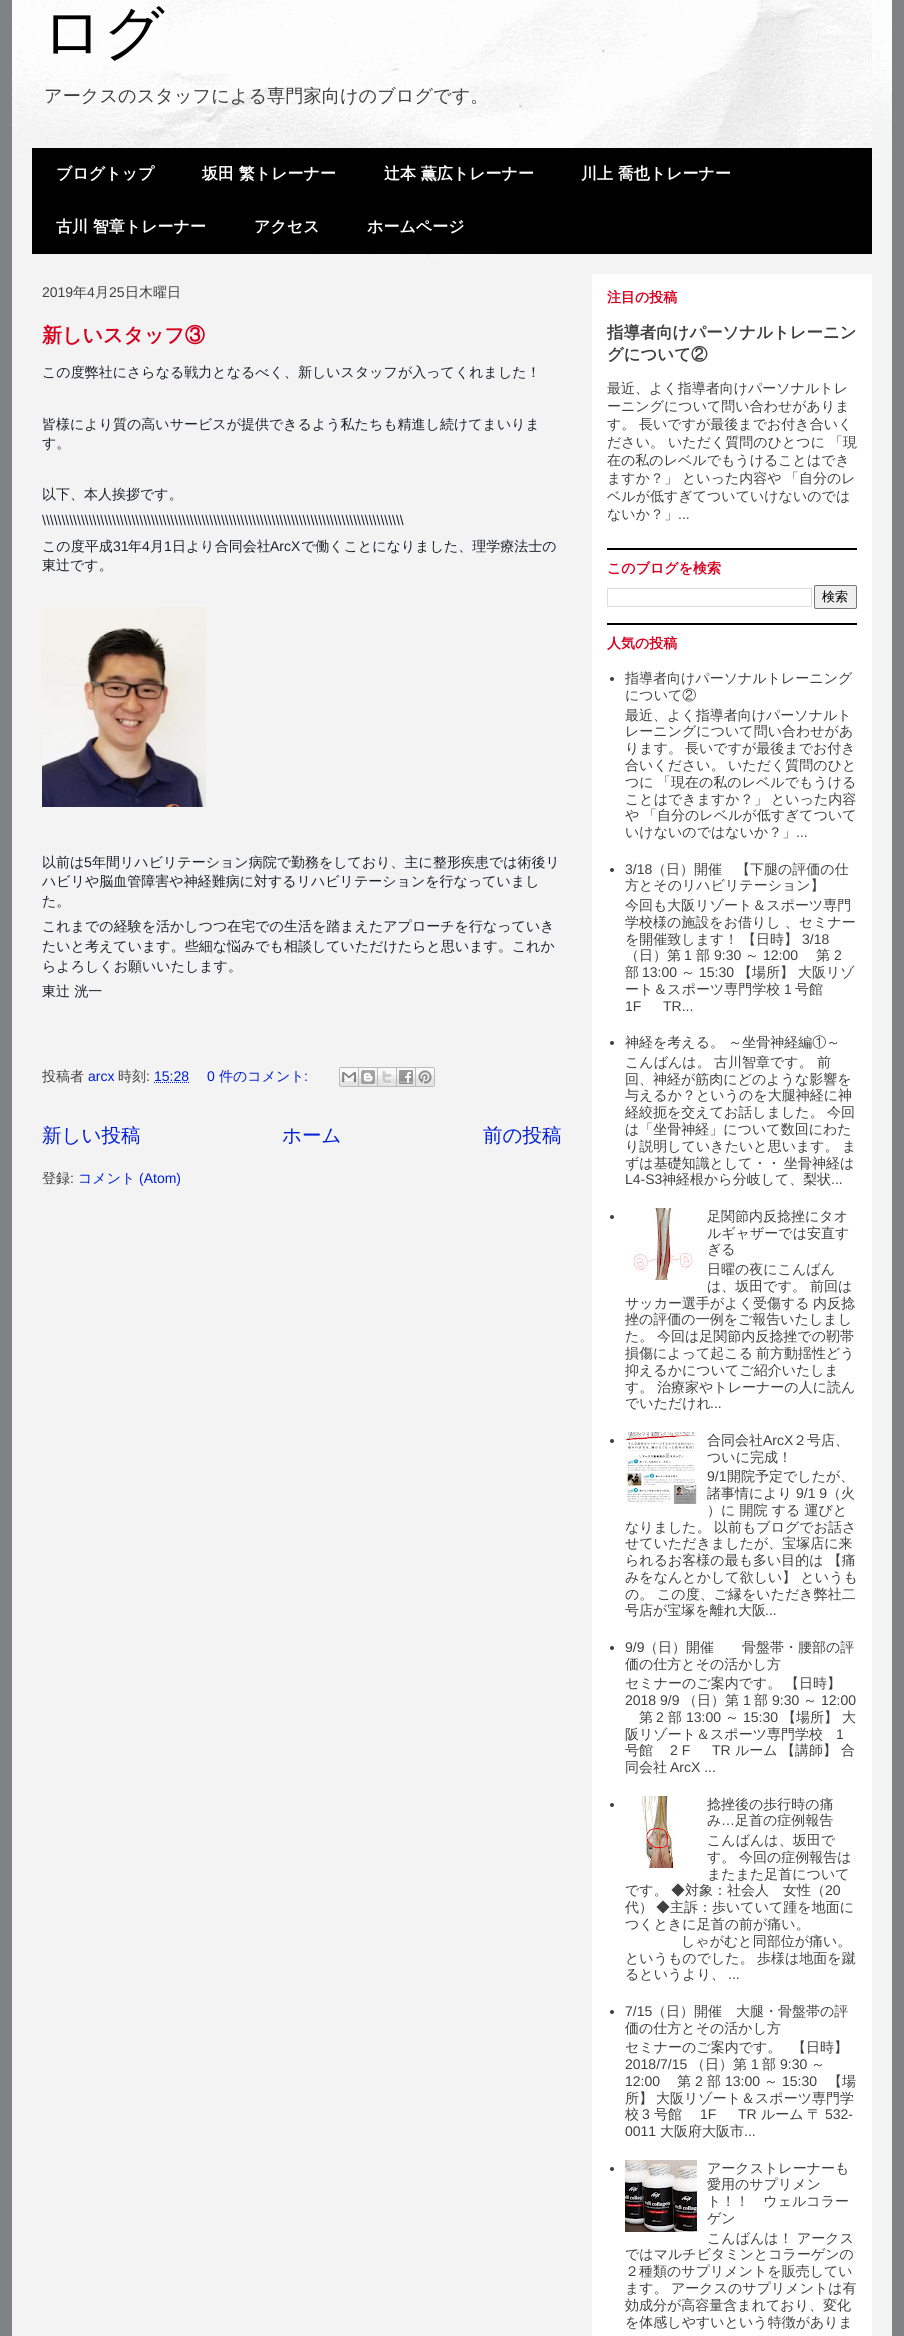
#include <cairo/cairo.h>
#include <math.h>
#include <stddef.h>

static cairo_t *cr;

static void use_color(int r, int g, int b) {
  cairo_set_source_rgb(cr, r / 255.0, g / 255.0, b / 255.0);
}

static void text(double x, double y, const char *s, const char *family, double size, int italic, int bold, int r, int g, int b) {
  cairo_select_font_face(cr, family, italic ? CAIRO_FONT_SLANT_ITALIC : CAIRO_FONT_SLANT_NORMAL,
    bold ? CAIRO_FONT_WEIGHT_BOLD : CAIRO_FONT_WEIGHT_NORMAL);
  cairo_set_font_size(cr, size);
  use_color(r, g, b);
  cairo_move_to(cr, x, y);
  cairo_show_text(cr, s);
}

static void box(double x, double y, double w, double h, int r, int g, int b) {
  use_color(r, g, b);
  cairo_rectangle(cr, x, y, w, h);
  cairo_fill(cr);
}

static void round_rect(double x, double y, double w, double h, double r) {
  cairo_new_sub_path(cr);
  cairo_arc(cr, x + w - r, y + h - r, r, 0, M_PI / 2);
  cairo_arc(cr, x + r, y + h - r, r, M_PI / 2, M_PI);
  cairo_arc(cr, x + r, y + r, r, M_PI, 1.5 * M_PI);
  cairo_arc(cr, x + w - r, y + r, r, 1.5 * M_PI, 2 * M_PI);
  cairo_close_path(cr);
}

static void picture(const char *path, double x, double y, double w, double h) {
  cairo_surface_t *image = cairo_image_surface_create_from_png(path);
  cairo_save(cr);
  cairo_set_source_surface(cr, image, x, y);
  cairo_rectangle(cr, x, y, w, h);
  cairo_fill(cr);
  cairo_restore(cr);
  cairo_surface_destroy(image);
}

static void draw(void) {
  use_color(128, 131, 131);
  cairo_paint(cr);
  box(12, 0, 880, 2336, 243, 243, 243);
  picture("img_01.png", 12, 0, 880, 257);
  box(32, 148, 840, 106, 0, 0, 0);
  box(592, 274, 280, 2062, 255, 255, 255);
  picture("img_02.png", 42, 607, 164, 200);
  cairo_new_path(cr);
  cairo_move_to(cr, 154, 1082.5);
  cairo_line_to(cr, 189, 1082.5);
  use_color(0, 30, 216);
  cairo_set_line_width(cr, 1);
  cairo_set_dash(cr, (double[]){1, 1}, 2, 0);
  cairo_stroke(cr);
  picture("img_03.png", 339, 1067, 20, 20);
  picture("img_04.png", 359, 1067, 19, 20);
  picture("img_05.png", 378, 1067, 19, 20);
  picture("img_06.png", 397, 1067, 19, 20);
  picture("img_07.png", 416, 1067, 19, 20);
  box(607, 548, 250, 2, 0, 0, 0);
  box(607, 623, 250, 2, 0, 0, 0);
  cairo_rectangle(cr, 607.5, 588.5, 204, 18);
  use_color(221, 221, 221);
  cairo_set_dash(cr, NULL, 0, 0);
  cairo_stroke(cr);
  use_color(239, 239, 239);
  round_rect(814.5, 585.5, 42, 23, 1.5);
  cairo_fill_preserve(cr);
  use_color(118, 118, 118);
  cairo_stroke(cr);
  use_color(64, 64, 64);
  cairo_arc(cr, 612, 679, 2, 0, 2 * M_PI);
  cairo_fill(cr);
  cairo_arc(cr, 612, 870, 2, 0, 2 * M_PI);
  cairo_fill(cr);
  cairo_arc(cr, 612, 1043, 2, 0, 2 * M_PI);
  cairo_fill(cr);
  cairo_arc(cr, 612, 1217, 2, 0, 2 * M_PI);
  cairo_fill(cr);
  picture("img_08.png", 633, 1208, 64, 72);
  cairo_arc(cr, 612, 1441, 2, 0, 2 * M_PI);
  cairo_fill(cr);
  picture("img_09.png", 625, 1432, 72, 72);
  cairo_arc(cr, 612, 1648, 2, 0, 2 * M_PI);
  cairo_fill(cr);
  cairo_arc(cr, 612, 1805, 2, 0, 2 * M_PI);
  cairo_fill(cr);
  picture("img_10.png", 641, 1796, 33, 72);
  cairo_arc(cr, 612, 2012, 2, 0, 2 * M_PI);
  cairo_fill(cr);
  cairo_arc(cr, 612, 2169, 2, 0, 2 * M_PI);
  cairo_fill(cr);
  picture("img_11.png", 625, 2160, 72, 72);
  text(42, 53, "ログ", "WenQuanYi Zen Hei Medium", 60, 0, 0, 0, 0, 0);
  text(44, 102, "アークスのスタッフによる専門家向けのブログです。", "WenQuanYi Zen Hei Medium", 18.2, 0, 0, 64, 64, 64);
  text(56, 179, "ブログトップ", "WenQuanYi Zen Hei", 16, 0, 1, 255, 255, 255);
  text(202, 179, "坂田 繁トレーナー", "WenQuanYi Zen Hei", 16, 0, 1, 255, 255, 255);
  text(384, 179, "辻本 薫広トレーナー", "WenQuanYi Zen Hei", 16, 0, 1, 255, 255, 255);
  text(581, 179, "川上 喬也トレーナー", "WenQuanYi Zen Hei", 16, 0, 1, 255, 255, 255);
  text(56, 232, "古川 智章トレーナー", "WenQuanYi Zen Hei", 16, 0, 1, 255, 255, 255);
  text(254, 232, "アクセス", "WenQuanYi Zen Hei", 16, 0, 1, 255, 255, 255);
  text(367, 232, "ホームページ", "WenQuanYi Zen Hei", 16, 0, 1, 255, 255, 255);
  text(42, 297, "2019", "Liberation Sans", 14, 0, 0, 64, 64, 64);
  text(73, 297, "年", "WenQuanYi Zen Hei Medium", 14, 0, 0, 64, 64, 64);
  text(87, 297, "4", "Liberation Sans", 14, 0, 0, 64, 64, 64);
  text(95, 297, "月", "WenQuanYi Zen Hei Medium", 14, 0, 0, 64, 64, 64);
  text(109, 297, "25", "Liberation Sans", 14, 0, 0, 64, 64, 64);
  text(125, 297, "日木曜日", "WenQuanYi Zen Hei Medium", 14, 0, 0, 64, 64, 64);
  text(42, 342, "新しいスタッフ③", "WenQuanYi Zen Hei", 20, 0, 1, 216, 0, 31);
  text(42, 377, "この度弊社にさらなる戦力となるべく、新しいスタッフが入ってくれました！", "WenQuanYi Zen Hei Medium", 14, 0, 0, 29, 33, 41);
  text(42, 429, "皆様により質の高いサービスが提供できるよう私たちも精進し続けてまいりま", "WenQuanYi Zen Hei Medium", 14, 0, 0, 29, 33, 41);
  text(42, 448, "す。", "WenQuanYi Zen Hei Medium", 14, 0, 0, 29, 33, 41);
  text(42, 499, "以下、本人挨拶です。", "WenQuanYi Zen Hei Medium", 14, 0, 0, 29, 33, 41);
  text(42, 525, "\\\\\\\\\\\\\\\\\\\\\\\\\\\\\\\\\\\\\\\\\\\\\\\\\\\\\\\\\\\\\\\\\\\\\\\\\\\\\\\\\\\\\\\\\\\\\\\\\\\\\\\\\\\\\\\\\\\\\\\\\\\\\\\\\\\\\\\\\\\\\\\\\\\\\\\\\\\\\\\\\\\\\\\\\\\\\\\\\\\\\\\\\\", "Liberation Sans", 14, 0, 0, 29, 33, 41);
  text(42, 551, "この度平成", "WenQuanYi Zen Hei Medium", 14, 0, 0, 29, 33, 41);
  text(113, 551, "31", "Liberation Sans", 14, 0, 0, 29, 33, 41);
  text(128, 551, "年", "WenQuanYi Zen Hei Medium", 14, 0, 0, 29, 33, 41);
  text(142, 551, "4", "Liberation Sans", 14, 0, 0, 29, 33, 41);
  text(150, 551, "月", "WenQuanYi Zen Hei Medium", 14, 0, 0, 29, 33, 41);
  text(164, 551, "1", "Liberation Sans", 14, 0, 0, 29, 33, 41);
  text(172, 551, "日より合同会社", "WenQuanYi Zen Hei Medium", 14, 0, 0, 29, 33, 41);
  text(270, 551, "ArcX", "Liberation Sans", 14, 0, 0, 29, 33, 41);
  text(301, 551, "で働くことになりました、理学療法士の", "WenQuanYi Zen Hei Medium", 14, 0, 0, 29, 33, 41);
  text(42, 570, "東辻です。", "WenQuanYi Zen Hei Medium", 14, 0, 0, 29, 33, 41);
  text(42, 867, "以前は", "WenQuanYi Zen Hei Medium", 14, 0, 0, 29, 33, 41);
  text(84, 867, "5", "Liberation Sans", 14, 0, 0, 29, 33, 41);
  text(92, 867, "年間リハビリテーション病院で勤務をしており、主に整形疾患では術後リ", "WenQuanYi Zen Hei Medium", 14, 0, 0, 29, 33, 41);
  text(42, 886, "ハビリや脳血管障害や神経難病に対するリハビリテーションを行なっていまし", "WenQuanYi Zen Hei Medium", 14, 0, 0, 29, 33, 41);
  text(42, 906, "た。", "WenQuanYi Zen Hei Medium", 14, 0, 0, 29, 33, 41);
  text(42, 931, "これまでの経験を活かしつつ在宅での生活を踏まえたアプローチを行なっていき", "WenQuanYi Zen Hei Medium", 14, 0, 0, 29, 33, 41);
  text(42, 951, "たいと考えています。些細な悩みでも相談していただけたらと思います。これか", "WenQuanYi Zen Hei Medium", 14, 0, 0, 29, 33, 41);
  text(42, 971, "らよろしくお願いいたします。", "WenQuanYi Zen Hei Medium", 14, 0, 0, 29, 33, 41);
  text(42, 996, "東辻 洸一", "WenQuanYi Zen Hei Medium", 14, 0, 0, 29, 33, 41);
  text(42, 1081, "投稿者", "WenQuanYi Zen Hei Medium", 14, 0, 0, 64, 64, 64);
  text(88, 1081, "arcx", "Liberation Sans", 14, 0, 0, 0, 30, 216);
  text(118, 1081, "時刻", "WenQuanYi Zen Hei Medium", 14, 0, 0, 64, 64, 64);
  text(146, 1081, ":", "Liberation Sans", 14, 0, 0, 64, 64, 64);
  text(154, 1081, "15:28", "Liberation Sans", 14, 0, 0, 0, 30, 216);
  text(207, 1081, "0", "Liberation Sans", 14, 0, 0, 0, 30, 216);
  text(219, 1081, "件のコメント", "WenQuanYi Zen Hei Medium", 14, 0, 0, 0, 30, 216);
  text(304, 1081, ":", "Liberation Sans", 14, 0, 0, 0, 30, 216);
  text(42, 1142, "新しい投稿", "WenQuanYi Zen Hei Medium", 19.5, 0, 0, 0, 30, 216);
  text(282, 1142, "ホーム", "WenQuanYi Zen Hei Medium", 19.5, 0, 0, 0, 30, 216);
  text(483, 1142, "前の投稿", "WenQuanYi Zen Hei Medium", 19.5, 0, 0, 0, 30, 216);
  text(42, 1183, "登録", "WenQuanYi Zen Hei Medium", 14, 0, 0, 64, 64, 64);
  text(70, 1183, ":", "Liberation Sans", 14, 0, 0, 64, 64, 64);
  text(78, 1183, "コメント", "WenQuanYi Zen Hei Medium", 14, 0, 0, 0, 30, 216);
  text(139, 1183, "(Atom)", "Liberation Sans", 14, 0, 0, 0, 30, 216);
  text(607, 302, "注目の投稿", "WenQuanYi Zen Hei", 14, 0, 1, 216, 0, 31);
  text(607, 338, "指導者向けパーソナルトレーニン", "WenQuanYi Zen Hei", 16.4, 0, 1, 64, 64, 64);
  text(607, 360, "グについて②", "WenQuanYi Zen Hei", 16.4, 0, 1, 64, 64, 64);
  text(607, 393, "最近、よく指導者向けパーソナルトレ", "WenQuanYi Zen Hei Medium", 14, 0, 0, 64, 64, 64);
  text(607, 411, "ーニングについて問い合わせがありま", "WenQuanYi Zen Hei Medium", 14, 0, 0, 64, 64, 64);
  text(607, 429, "す。", "WenQuanYi Zen Hei Medium", 14, 0, 0, 64, 64, 64);
  text(639, 429, "長いですが最後までお付き合いく", "WenQuanYi Zen Hei Medium", 14, 0, 0, 64, 64, 64);
  text(607, 447, "ださい。", "WenQuanYi Zen Hei Medium", 14, 0, 0, 64, 64, 64);
  text(668, 447, "いただく質問のひとつに", "WenQuanYi Zen Hei Medium", 14, 0, 0, 64, 64, 64);
  text(829, 447, "「現", "WenQuanYi Zen Hei Medium", 14, 0, 0, 64, 64, 64);
  text(607, 465, "在の私のレベルでもうけることはでき", "WenQuanYi Zen Hei Medium", 14, 0, 0, 64, 64, 64);
  text(607, 483, "ますか？」", "WenQuanYi Zen Hei Medium", 14, 0, 0, 64, 64, 64);
  text(682, 483, "といった内容や", "WenQuanYi Zen Hei Medium", 14, 0, 0, 64, 64, 64);
  text(785, 483, "「自分のレ", "WenQuanYi Zen Hei Medium", 14, 0, 0, 64, 64, 64);
  text(607, 501, "ベルが低すぎてついていけないのでは", "WenQuanYi Zen Hei Medium", 14, 0, 0, 64, 64, 64);
  text(607, 519, "ないか？」", "WenQuanYi Zen Hei Medium", 14, 0, 0, 64, 64, 64);
  text(678, 519, "...", "Liberation Sans", 14, 0, 0, 64, 64, 64);
  text(607, 573, "このブログを検索", "WenQuanYi Zen Hei", 14, 0, 1, 216, 0, 31);
  text(822, 601, "検索", "WenQuanYi Zen Hei Medium", 13, 0, 0, 0, 0, 0);
  text(607, 648, "人気の投稿", "WenQuanYi Zen Hei", 14, 0, 1, 216, 0, 31);
  text(625, 683, "指導者向けパーソナルトレーニング", "WenQuanYi Zen Hei Medium", 14, 0, 0, 64, 64, 64);
  text(625, 700, "について②", "WenQuanYi Zen Hei Medium", 14, 0, 0, 64, 64, 64);
  text(625, 720, "最近、よく指導者向けパーソナルト", "WenQuanYi Zen Hei Medium", 14, 0, 0, 64, 64, 64);
  text(625, 736, "レーニングについて問い合わせがあ", "WenQuanYi Zen Hei Medium", 14, 0, 0, 64, 64, 64);
  text(625, 753, "ります。", "WenQuanYi Zen Hei Medium", 14, 0, 0, 64, 64, 64);
  text(685, 753, "長いですが最後までお付き", "WenQuanYi Zen Hei Medium", 14, 0, 0, 64, 64, 64);
  text(625, 770, "合いください。", "WenQuanYi Zen Hei Medium", 14, 0, 0, 64, 64, 64);
  text(728, 770, "いただく質問のひと", "WenQuanYi Zen Hei Medium", 14, 0, 0, 64, 64, 64);
  text(625, 787, "つに", "WenQuanYi Zen Hei Medium", 14, 0, 0, 64, 64, 64);
  text(657, 787, "「現在の私のレベルでもうける", "WenQuanYi Zen Hei Medium", 14, 0, 0, 64, 64, 64);
  text(625, 804, "ことはできますか？」", "WenQuanYi Zen Hei Medium", 14, 0, 0, 64, 64, 64);
  text(771, 804, "といった内容", "WenQuanYi Zen Hei Medium", 14, 0, 0, 64, 64, 64);
  text(625, 820, "や", "WenQuanYi Zen Hei Medium", 14, 0, 0, 64, 64, 64);
  text(643, 820, "「自分のレベルが低すぎてついて", "WenQuanYi Zen Hei Medium", 14, 0, 0, 64, 64, 64);
  text(625, 837, "いけないのではないか？」", "WenQuanYi Zen Hei Medium", 14, 0, 0, 64, 64, 64);
  text(796, 837, "...", "Liberation Sans", 14, 0, 0, 64, 64, 64);
  text(625, 874, "3/18", "Liberation Sans", 14, 0, 0, 64, 64, 64);
  text(652, 874, "（日）開催　【下腿の評価の仕", "WenQuanYi Zen Hei Medium", 14, 0, 0, 64, 64, 64);
  text(625, 890, "方とそのリハビリテーション】", "WenQuanYi Zen Hei Medium", 14, 0, 0, 64, 64, 64);
  text(625, 910, "今回も大阪リゾート＆スポーツ専門", "WenQuanYi Zen Hei Medium", 14, 0, 0, 64, 64, 64);
  text(625, 927, "学校様の施設をお借りし 、セミナー", "WenQuanYi Zen Hei Medium", 14, 0, 0, 64, 64, 64);
  text(625, 944, "を開催致します！", "WenQuanYi Zen Hei Medium", 14, 0, 0, 64, 64, 64);
  text(742, 944, "【日時】", "WenQuanYi Zen Hei Medium", 14, 0, 0, 64, 64, 64);
  text(802, 944, "3/18", "Liberation Sans", 14, 0, 0, 64, 64, 64);
  text(625, 960, "（日）第", "WenQuanYi Zen Hei Medium", 14, 0, 0, 64, 64, 64);
  text(684, 960, "1", "Liberation Sans", 14, 0, 0, 64, 64, 64);
  text(696, 960, "部", "WenQuanYi Zen Hei Medium", 14, 0, 0, 64, 64, 64);
  text(714, 960, "9:30", "Liberation Sans", 14, 0, 0, 64, 64, 64);
  text(745, 960, "～", "WenQuanYi Zen Hei Medium", 14, 0, 0, 64, 64, 64);
  text(763, 960, "12:00", "Liberation Sans", 14, 0, 0, 64, 64, 64);
  text(816, 960, "第", "WenQuanYi Zen Hei Medium", 14, 0, 0, 64, 64, 64);
  text(834, 960, "2", "Liberation Sans", 14, 0, 0, 64, 64, 64);
  text(625, 977, "部", "WenQuanYi Zen Hei Medium", 14, 0, 0, 64, 64, 64);
  text(642, 977, "13:00", "Liberation Sans", 14, 0, 0, 64, 64, 64);
  text(681, 977, "～", "WenQuanYi Zen Hei Medium", 14, 0, 0, 64, 64, 64);
  text(699, 977, "15:30", "Liberation Sans", 14, 0, 0, 64, 64, 64);
  text(738, 977, "【場所】", "WenQuanYi Zen Hei Medium", 14, 0, 0, 64, 64, 64);
  text(798, 977, "大阪リゾ", "WenQuanYi Zen Hei Medium", 14, 0, 0, 64, 64, 64);
  text(625, 994, "ート＆スポーツ専門学校", "WenQuanYi Zen Hei Medium", 14, 0, 0, 64, 64, 64);
  text(784, 994, "1", "Liberation Sans", 14, 0, 0, 64, 64, 64);
  text(795, 994, "号館", "WenQuanYi Zen Hei Medium", 14, 0, 0, 64, 64, 64);
  text(625, 1011, "1F", "Liberation Sans", 14, 0, 0, 64, 64, 64);
  text(663, 1011, "TR...", "Liberation Sans", 14, 0, 0, 64, 64, 64);
  text(625, 1047, "神経を考える。 ～坐骨神経編①～", "WenQuanYi Zen Hei Medium", 14, 0, 0, 64, 64, 64);
  text(625, 1067, "こんばんは。", "WenQuanYi Zen Hei Medium", 14, 0, 0, 64, 64, 64);
  text(714, 1067, "古川智章です。", "WenQuanYi Zen Hei Medium", 14, 0, 0, 64, 64, 64);
  text(817, 1067, "前", "WenQuanYi Zen Hei Medium", 14, 0, 0, 64, 64, 64);
  text(625, 1084, "回、神経が筋肉にどのような影響を", "WenQuanYi Zen Hei Medium", 14, 0, 0, 64, 64, 64);
  text(625, 1100, "与えるか？というのを大腿神経に神", "WenQuanYi Zen Hei Medium", 14, 0, 0, 64, 64, 64);
  text(625, 1117, "経絞扼を交えてお話しました。", "WenQuanYi Zen Hei Medium", 14, 0, 0, 64, 64, 64);
  text(827, 1117, "今回", "WenQuanYi Zen Hei Medium", 14, 0, 0, 64, 64, 64);
  text(625, 1134, "は「坐骨神経」について数回にわた", "WenQuanYi Zen Hei Medium", 14, 0, 0, 64, 64, 64);
  text(625, 1151, "り説明していきたいと思います。", "WenQuanYi Zen Hei Medium", 14, 0, 0, 64, 64, 64);
  text(842, 1151, "ま", "WenQuanYi Zen Hei Medium", 14, 0, 0, 64, 64, 64);
  text(625, 1168, "ずは基礎知識として・・", "WenQuanYi Zen Hei Medium", 14, 0, 0, 64, 64, 64);
  text(784, 1168, "坐骨神経は", "WenQuanYi Zen Hei Medium", 14, 0, 0, 64, 64, 64);
  text(625, 1184, "L4-S3", "Liberation Sans", 14, 0, 0, 64, 64, 64);
  text(662, 1184, "神経根から分岐して、梨状", "WenQuanYi Zen Hei Medium", 14, 0, 0, 64, 64, 64);
  text(831, 1184, "...", "Liberation Sans", 14, 0, 0, 64, 64, 64);
  text(707, 1221, "足関節内反捻挫にタオ", "WenQuanYi Zen Hei Medium", 14, 0, 0, 64, 64, 64);
  text(707, 1238, "ルギャザーでは安直す", "WenQuanYi Zen Hei Medium", 14, 0, 0, 64, 64, 64);
  text(707, 1254, "ぎる", "WenQuanYi Zen Hei Medium", 14, 0, 0, 64, 64, 64);
  text(707, 1274, "日曜の夜にこんばん", "WenQuanYi Zen Hei Medium", 14, 0, 0, 64, 64, 64);
  text(707, 1291, "は、坂田です。", "WenQuanYi Zen Hei Medium", 14, 0, 0, 64, 64, 64);
  text(810, 1291, "前回は", "WenQuanYi Zen Hei Medium", 14, 0, 0, 64, 64, 64);
  text(625, 1308, "サッカー選手がよく受傷する", "WenQuanYi Zen Hei Medium", 14, 0, 0, 64, 64, 64);
  text(813, 1308, "内反捻", "WenQuanYi Zen Hei Medium", 14, 0, 0, 64, 64, 64);
  text(625, 1324, "挫の評価の一例をご報告いたしまし", "WenQuanYi Zen Hei Medium", 14, 0, 0, 64, 64, 64);
  text(625, 1341, "た。", "WenQuanYi Zen Hei Medium", 14, 0, 0, 64, 64, 64);
  text(657, 1341, "今回は足関節内反捻挫での靭帯", "WenQuanYi Zen Hei Medium", 14, 0, 0, 64, 64, 64);
  text(625, 1358, "損傷によって起こる", "WenQuanYi Zen Hei Medium", 14, 0, 0, 64, 64, 64);
  text(756, 1358, "前方動揺性どう", "WenQuanYi Zen Hei Medium", 14, 0, 0, 64, 64, 64);
  text(625, 1375, "抑えるかについてご紹介いたしま", "WenQuanYi Zen Hei Medium", 14, 0, 0, 64, 64, 64);
  text(625, 1392, "す。", "WenQuanYi Zen Hei Medium", 14, 0, 0, 64, 64, 64);
  text(657, 1392, "治療家やトレーナーの人に読ん", "WenQuanYi Zen Hei Medium", 14, 0, 0, 64, 64, 64);
  text(625, 1408, "でいただけれ", "WenQuanYi Zen Hei Medium", 14, 0, 0, 64, 64, 64);
  text(710, 1408, "...", "Liberation Sans", 14, 0, 0, 64, 64, 64);
  text(707, 1445, "合同会社", "WenQuanYi Zen Hei Medium", 14, 0, 0, 64, 64, 64);
  text(763, 1445, "ArcX", "Liberation Sans", 14, 0, 0, 64, 64, 64);
  text(793, 1445, "２号店、", "WenQuanYi Zen Hei Medium", 14, 0, 0, 64, 64, 64);
  text(707, 1462, "ついに完成！", "WenQuanYi Zen Hei Medium", 14, 0, 0, 64, 64, 64);
  text(707, 1481, "9/1", "Liberation Sans", 14, 0, 0, 64, 64, 64);
  text(727, 1481, "開院予定でしたが、", "WenQuanYi Zen Hei Medium", 14, 0, 0, 64, 64, 64);
  text(707, 1498, "諸事情により", "WenQuanYi Zen Hei Medium", 14, 0, 0, 64, 64, 64);
  text(796, 1498, "9/1 9", "Liberation Sans", 14, 0, 0, 64, 64, 64);
  text(827, 1498, "（火", "WenQuanYi Zen Hei Medium", 14, 0, 0, 64, 64, 64);
  text(707, 1515, "）に 開院 する 運びと", "WenQuanYi Zen Hei Medium", 14, 0, 0, 64, 64, 64);
  text(625, 1532, "なりました。", "WenQuanYi Zen Hei Medium", 14, 0, 0, 64, 64, 64);
  text(714, 1532, "以前もブログでお話さ", "WenQuanYi Zen Hei Medium", 14, 0, 0, 64, 64, 64);
  text(625, 1548, "せていただきましたが、宝塚店に来", "WenQuanYi Zen Hei Medium", 14, 0, 0, 64, 64, 64);
  text(625, 1565, "られるお客様の最も多い目的は 【痛", "WenQuanYi Zen Hei Medium", 14, 0, 0, 64, 64, 64);
  text(625, 1582, "みをなんとかして欲しい】 というも", "WenQuanYi Zen Hei Medium", 14, 0, 0, 64, 64, 64);
  text(625, 1599, "の。", "WenQuanYi Zen Hei Medium", 14, 0, 0, 64, 64, 64);
  text(657, 1599, "この度、ご縁をいただき弊社二", "WenQuanYi Zen Hei Medium", 14, 0, 0, 64, 64, 64);
  text(625, 1615, "号店が宝塚を離れ大阪", "WenQuanYi Zen Hei Medium", 14, 0, 0, 64, 64, 64);
  text(765, 1615, "...", "Liberation Sans", 14, 0, 0, 64, 64, 64);
  text(625, 1652, "9/9", "Liberation Sans", 14, 0, 0, 64, 64, 64);
  text(644, 1652, "（日）開催　　骨盤帯・腰部の評", "WenQuanYi Zen Hei Medium", 14, 0, 0, 64, 64, 64);
  text(625, 1669, "価の仕方とその活かし方", "WenQuanYi Zen Hei Medium", 14, 0, 0, 64, 64, 64);
  text(625, 1688, "セミナーのご案内です。", "WenQuanYi Zen Hei Medium", 14, 0, 0, 64, 64, 64);
  text(785, 1688, "【日時】", "WenQuanYi Zen Hei Medium", 14, 0, 0, 64, 64, 64);
  text(625, 1705, "2018 9/9", "Liberation Sans", 14, 0, 0, 64, 64, 64);
  text(683, 1705, "（日）第", "WenQuanYi Zen Hei Medium", 14, 0, 0, 64, 64, 64);
  text(743, 1705, "1", "Liberation Sans", 14, 0, 0, 64, 64, 64);
  text(754, 1705, "部", "WenQuanYi Zen Hei Medium", 14, 0, 0, 64, 64, 64);
  text(772, 1705, "9:30", "Liberation Sans", 14, 0, 0, 64, 64, 64);
  text(803, 1705, "～", "WenQuanYi Zen Hei Medium", 14, 0, 0, 64, 64, 64);
  text(821, 1705, "12:00", "Liberation Sans", 14, 0, 0, 64, 64, 64);
  text(639, 1722, "第", "WenQuanYi Zen Hei Medium", 14, 0, 0, 64, 64, 64);
  text(656, 1722, "2", "Liberation Sans", 14, 0, 0, 64, 64, 64);
  text(668, 1722, "部", "WenQuanYi Zen Hei Medium", 14, 0, 0, 64, 64, 64);
  text(686, 1722, "13:00", "Liberation Sans", 14, 0, 0, 64, 64, 64);
  text(725, 1722, "～", "WenQuanYi Zen Hei Medium", 14, 0, 0, 64, 64, 64);
  text(743, 1722, "15:30", "Liberation Sans", 14, 0, 0, 64, 64, 64);
  text(782, 1722, "【場所】", "WenQuanYi Zen Hei Medium", 14, 0, 0, 64, 64, 64);
  text(842, 1722, "大", "WenQuanYi Zen Hei Medium", 14, 0, 0, 64, 64, 64);
  text(625, 1739, "阪リゾート＆スポーツ専門学校", "WenQuanYi Zen Hei Medium", 14, 0, 0, 64, 64, 64);
  text(836, 1739, "1", "Liberation Sans", 14, 0, 0, 64, 64, 64);
  text(625, 1755, "号館", "WenQuanYi Zen Hei Medium", 14, 0, 0, 64, 64, 64);
  text(670, 1755, "2 F", "Liberation Sans", 14, 0, 0, 64, 64, 64);
  text(712, 1755, "TR", "Liberation Sans", 14, 0, 0, 64, 64, 64);
  text(735, 1755, "ルーム", "WenQuanYi Zen Hei Medium", 14, 0, 0, 64, 64, 64);
  text(781, 1755, "【講師】", "WenQuanYi Zen Hei Medium", 14, 0, 0, 64, 64, 64);
  text(841, 1755, "合", "WenQuanYi Zen Hei Medium", 14, 0, 0, 64, 64, 64);
  text(625, 1772, "同会社", "WenQuanYi Zen Hei Medium", 14, 0, 0, 64, 64, 64);
  text(670, 1772, "ArcX ...", "Liberation Sans", 14, 0, 0, 64, 64, 64);
  text(707, 1809, "捻挫後の歩行時の痛", "WenQuanYi Zen Hei Medium", 14, 0, 0, 64, 64, 64);
  text(707, 1825, "み", "WenQuanYi Zen Hei Medium", 14, 0, 0, 64, 64, 64);
  text(721, 1825, "…", "Liberation Sans", 14, 0, 0, 64, 64, 64);
  text(735, 1825, "足首の症例報告", "WenQuanYi Zen Hei Medium", 14, 0, 0, 64, 64, 64);
  text(707, 1845, "こんばんは、坂田で", "WenQuanYi Zen Hei Medium", 14, 0, 0, 64, 64, 64);
  text(707, 1862, "す。", "WenQuanYi Zen Hei Medium", 14, 0, 0, 64, 64, 64);
  text(739, 1862, "今回の症例報告は", "WenQuanYi Zen Hei Medium", 14, 0, 0, 64, 64, 64);
  text(707, 1879, "またまた足首について", "WenQuanYi Zen Hei Medium", 14, 0, 0, 64, 64, 64);
  text(625, 1895, "です。", "WenQuanYi Zen Hei Medium", 14, 0, 0, 64, 64, 64);
  text(671, 1895, "◆対象：社会人　女性（", "WenQuanYi Zen Hei Medium", 14, 0, 0, 64, 64, 64);
  text(825, 1895, "20", "Liberation Sans", 14, 0, 0, 64, 64, 64);
  text(625, 1912, "代）", "WenQuanYi Zen Hei Medium", 14, 0, 0, 64, 64, 64);
  text(656, 1912, "◆主訴：歩いていて踵を地面に", "WenQuanYi Zen Hei Medium", 14, 0, 0, 64, 64, 64);
  text(625, 1929, "つくときに足首の前が痛い。", "WenQuanYi Zen Hei Medium", 14, 0, 0, 64, 64, 64);
  text(681, 1946, "しゃがむと同部位が痛い。", "WenQuanYi Zen Hei Medium", 14, 0, 0, 64, 64, 64);
  text(625, 1963, "というものでした。", "WenQuanYi Zen Hei Medium", 14, 0, 0, 64, 64, 64);
  text(757, 1963, "歩様は地面を蹴", "WenQuanYi Zen Hei Medium", 14, 0, 0, 64, 64, 64);
  text(625, 1979, "るというより、", "WenQuanYi Zen Hei Medium", 14, 0, 0, 64, 64, 64);
  text(728, 1979, "...", "Liberation Sans", 14, 0, 0, 64, 64, 64);
  text(625, 2016, "7/15", "Liberation Sans", 14, 0, 0, 64, 64, 64);
  text(652, 2016, "（日）開催　大腿・骨盤帯の評", "WenQuanYi Zen Hei Medium", 14, 0, 0, 64, 64, 64);
  text(625, 2033, "価の仕方とその活かし方", "WenQuanYi Zen Hei Medium", 14, 0, 0, 64, 64, 64);
  text(625, 2052, "セミナーのご案内です。", "WenQuanYi Zen Hei Medium", 14, 0, 0, 64, 64, 64);
  text(792, 2052, "【日時】", "WenQuanYi Zen Hei Medium", 14, 0, 0, 64, 64, 64);
  text(625, 2069, "2018/7/15", "Liberation Sans", 14, 0, 0, 64, 64, 64);
  text(691, 2069, "（日）第", "WenQuanYi Zen Hei Medium", 14, 0, 0, 64, 64, 64);
  text(751, 2069, "1", "Liberation Sans", 14, 0, 0, 64, 64, 64);
  text(762, 2069, "部", "WenQuanYi Zen Hei Medium", 14, 0, 0, 64, 64, 64);
  text(780, 2069, "9:30", "Liberation Sans", 14, 0, 0, 64, 64, 64);
  text(811, 2069, "～", "WenQuanYi Zen Hei Medium", 14, 0, 0, 64, 64, 64);
  text(625, 2086, "12:00", "Liberation Sans", 14, 0, 0, 64, 64, 64);
  text(677, 2086, "第", "WenQuanYi Zen Hei Medium", 14, 0, 0, 64, 64, 64);
  text(695, 2086, "2", "Liberation Sans", 14, 0, 0, 64, 64, 64);
  text(707, 2086, "部", "WenQuanYi Zen Hei Medium", 14, 0, 0, 64, 64, 64);
  text(725, 2086, "13:00", "Liberation Sans", 14, 0, 0, 64, 64, 64);
  text(764, 2086, "～", "WenQuanYi Zen Hei Medium", 14, 0, 0, 64, 64, 64);
  text(782, 2086, "15:30", "Liberation Sans", 14, 0, 0, 64, 64, 64);
  text(828, 2086, "【場", "WenQuanYi Zen Hei Medium", 14, 0, 0, 64, 64, 64);
  text(625, 2103, "所】", "WenQuanYi Zen Hei Medium", 14, 0, 0, 64, 64, 64);
  text(656, 2103, "大阪リゾート＆スポーツ専門学", "WenQuanYi Zen Hei Medium", 14, 0, 0, 64, 64, 64);
  text(625, 2119, "校", "WenQuanYi Zen Hei Medium", 14, 0, 0, 64, 64, 64);
  text(642, 2119, "3", "Liberation Sans", 14, 0, 0, 64, 64, 64);
  text(654, 2119, "号館", "WenQuanYi Zen Hei Medium", 14, 0, 0, 64, 64, 64);
  text(700, 2119, "1F", "Liberation Sans", 14, 0, 0, 64, 64, 64);
  text(738, 2119, "TR", "Liberation Sans", 14, 0, 0, 64, 64, 64);
  text(761, 2119, "ルーム", "WenQuanYi Zen Hei Medium", 14, 0, 0, 64, 64, 64);
  text(807, 2119, "〒", "WenQuanYi Zen Hei Medium", 14, 0, 0, 64, 64, 64);
  text(825, 2119, "532-", "Liberation Sans", 14, 0, 0, 64, 64, 64);
  text(625, 2136, "0011", "Liberation Sans", 14, 0, 0, 64, 64, 64);
  text(660, 2136, "大阪府大阪市", "WenQuanYi Zen Hei Medium", 14, 0, 0, 64, 64, 64);
  text(744, 2136, "...", "Liberation Sans", 14, 0, 0, 64, 64, 64);
  text(707, 2173, "アークストレーナーも", "WenQuanYi Zen Hei Medium", 14, 0, 0, 64, 64, 64);
  text(707, 2189, "愛用のサプリメン", "WenQuanYi Zen Hei Medium", 14, 0, 0, 64, 64, 64);
  text(707, 2206, "ト！！　ウェルコラー", "WenQuanYi Zen Hei Medium", 14, 0, 0, 64, 64, 64);
  text(707, 2223, "ゲン", "WenQuanYi Zen Hei Medium", 14, 0, 0, 64, 64, 64);
  text(707, 2243, "こんばんは！", "WenQuanYi Zen Hei Medium", 14, 0, 0, 64, 64, 64);
  text(797, 2243, "アークス", "WenQuanYi Zen Hei Medium", 14, 0, 0, 64, 64, 64);
  text(625, 2259, "ではマルチビタミンとコラーゲンの", "WenQuanYi Zen Hei Medium", 14, 0, 0, 64, 64, 64);
  text(625, 2276, "２種類のサプリメントを販売してい", "WenQuanYi Zen Hei Medium", 14, 0, 0, 64, 64, 64);
  text(625, 2293, "ます。", "WenQuanYi Zen Hei Medium", 14, 0, 0, 64, 64, 64);
  text(671, 2293, "アークスのサプリメントは有", "WenQuanYi Zen Hei Medium", 14, 0, 0, 64, 64, 64);
  text(625, 2310, "効成分が高容量含まれており、変化", "WenQuanYi Zen Hei Medium", 14, 0, 0, 64, 64, 64);
  text(625, 2327, "を体感しやすいという特徴がありま", "WenQuanYi Zen Hei Medium", 14, 0, 0, 64, 64, 64);
}

int main(void) {
  cairo_surface_t *surface = cairo_image_surface_create(CAIRO_FORMAT_RGB24, 904, 2336);
  cr = cairo_create(surface);
  cairo_font_options_t *options = cairo_font_options_create();
  cairo_font_options_set_hint_metrics(options, CAIRO_HINT_METRICS_OFF);
  cairo_font_options_set_hint_style(options, CAIRO_HINT_STYLE_NONE);
  cairo_set_font_options(cr, options);
  cairo_set_miter_limit(cr, 4);
  draw();
  cairo_surface_write_to_png(surface, "out.png");
  cairo_font_options_destroy(options);
  cairo_destroy(cr);
  cairo_surface_destroy(surface);
  return 0;
}
